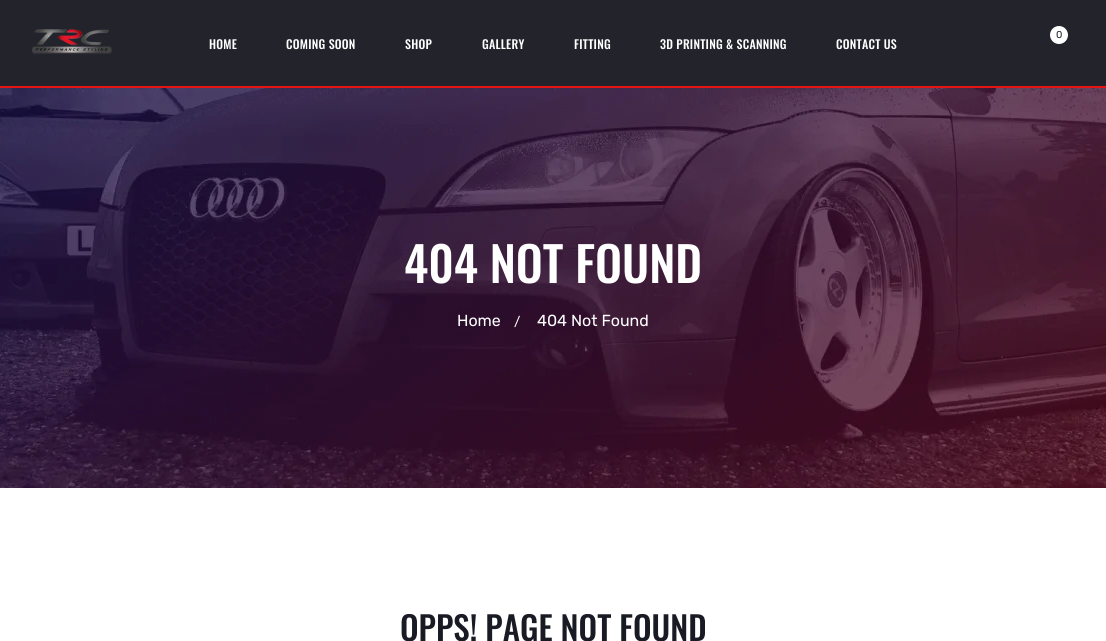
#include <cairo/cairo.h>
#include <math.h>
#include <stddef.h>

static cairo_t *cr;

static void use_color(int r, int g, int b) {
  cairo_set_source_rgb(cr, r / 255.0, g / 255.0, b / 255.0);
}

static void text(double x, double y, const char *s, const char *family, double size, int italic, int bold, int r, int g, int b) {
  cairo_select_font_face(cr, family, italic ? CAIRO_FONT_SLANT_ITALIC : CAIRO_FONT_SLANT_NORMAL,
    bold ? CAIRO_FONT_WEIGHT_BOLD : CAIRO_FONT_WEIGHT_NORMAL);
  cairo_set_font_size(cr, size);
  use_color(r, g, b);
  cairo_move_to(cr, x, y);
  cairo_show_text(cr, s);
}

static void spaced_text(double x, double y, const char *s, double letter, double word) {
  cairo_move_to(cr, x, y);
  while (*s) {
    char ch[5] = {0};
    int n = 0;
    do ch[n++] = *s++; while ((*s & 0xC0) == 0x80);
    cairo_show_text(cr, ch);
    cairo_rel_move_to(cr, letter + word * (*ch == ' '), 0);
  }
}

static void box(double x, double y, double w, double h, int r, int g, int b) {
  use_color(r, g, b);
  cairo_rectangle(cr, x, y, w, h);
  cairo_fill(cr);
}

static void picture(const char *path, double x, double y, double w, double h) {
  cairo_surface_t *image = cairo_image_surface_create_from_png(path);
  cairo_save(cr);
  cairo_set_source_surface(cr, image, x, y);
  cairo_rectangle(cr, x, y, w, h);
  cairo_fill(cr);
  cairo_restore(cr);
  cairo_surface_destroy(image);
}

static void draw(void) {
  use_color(255, 255, 255);
  cairo_paint(cr);
  box(0, 0, 1106, 86, 34, 35, 43);
  picture("img_01.png", 31, 29, 81, 25);
  use_color(255, 255, 255);
  cairo_arc(cr, 1059, 35, 9, 0, 2 * M_PI);
  cairo_fill(cr);
  box(0, 86, 1106, 2, 229, 21, 21);
  picture("img_02.png", 0, 88, 1106, 400);
  text(1056, 38, "0", "Rubik", 10, 0, 0, 34, 35, 43);
  cairo_select_font_face(cr, "Oswald Medium", CAIRO_FONT_SLANT_NORMAL, CAIRO_FONT_WEIGHT_NORMAL);
  cairo_set_font_size(cr, 12);
  use_color(255, 255, 255);
  spaced_text(209, 49, "HOME", 0.25, 0);
  spaced_text(286, 49, "COMING SOON", 0.25, 0);
  spaced_text(405, 49, "SHOP", 0.25, 0);
  spaced_text(482, 49, "GALLERY", 0.25, 0);
  spaced_text(574, 49, "FITTING", 0.25, 0);
  spaced_text(660, 49, "3D PRINTING & SCANNING", 0.25, 0);
  spaced_text(836, 49, "CONTACT US", 0.25, 0);
  text(404, 283, "404 NOT FOUND", "Oswald Medium", 48, 0, 0, 255, 255, 255);
  text(457, 326, "Home", "Rubik", 16, 0, 0, 255, 255, 255);
  text(514, 326, "/", "Rubik", 13, 0, 0, 255, 255, 255);
  text(537, 326, "404 Not Found", "Rubik", 16, 0, 0, 255, 255, 255);
  text(400, 641, "OPPS! PAGE NOT FOUND", "Oswald Medium", 33, 0, 0, 24, 27, 35);
}

int main(void) {
  cairo_surface_t *surface = cairo_image_surface_create(CAIRO_FORMAT_RGB24, 1106, 641);
  cr = cairo_create(surface);
  cairo_font_options_t *options = cairo_font_options_create();
  cairo_font_options_set_hint_metrics(options, CAIRO_HINT_METRICS_OFF);
  cairo_font_options_set_hint_style(options, CAIRO_HINT_STYLE_NONE);
  cairo_set_font_options(cr, options);
  cairo_set_miter_limit(cr, 4);
  draw();
  cairo_surface_write_to_png(surface, "out.png");
  cairo_font_options_destroy(options);
  cairo_destroy(cr);
  cairo_surface_destroy(surface);
  return 0;
}
